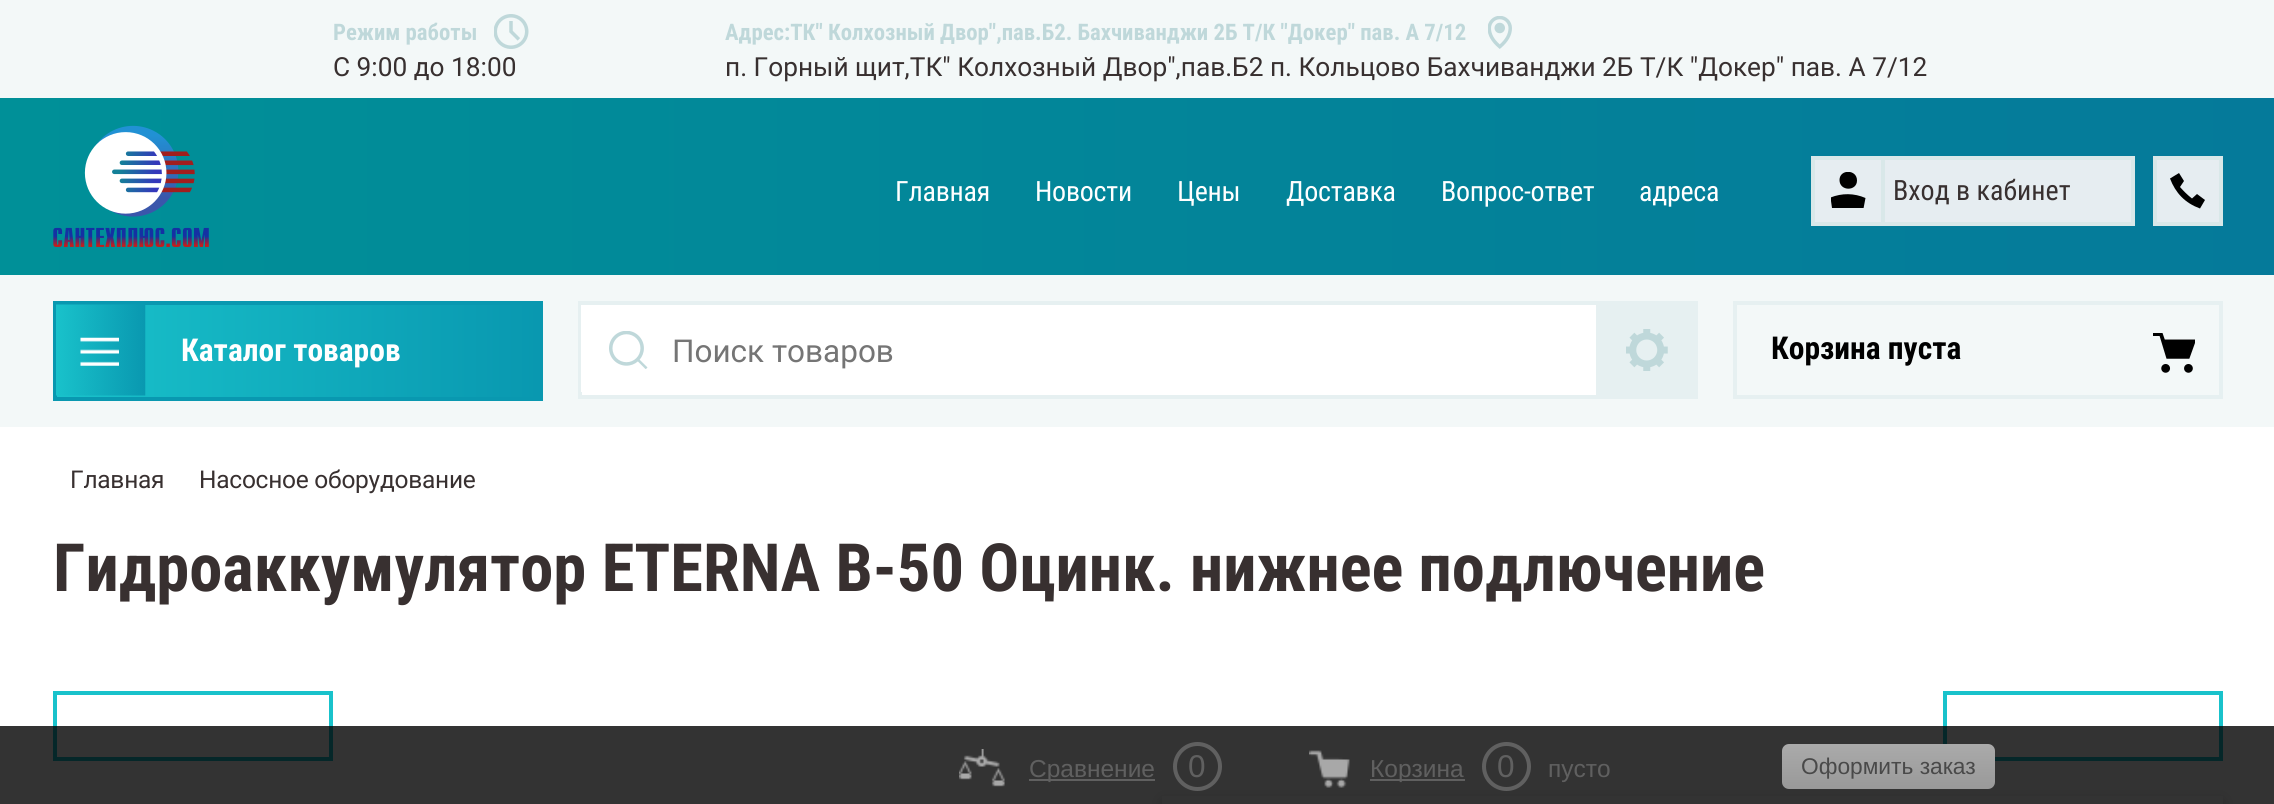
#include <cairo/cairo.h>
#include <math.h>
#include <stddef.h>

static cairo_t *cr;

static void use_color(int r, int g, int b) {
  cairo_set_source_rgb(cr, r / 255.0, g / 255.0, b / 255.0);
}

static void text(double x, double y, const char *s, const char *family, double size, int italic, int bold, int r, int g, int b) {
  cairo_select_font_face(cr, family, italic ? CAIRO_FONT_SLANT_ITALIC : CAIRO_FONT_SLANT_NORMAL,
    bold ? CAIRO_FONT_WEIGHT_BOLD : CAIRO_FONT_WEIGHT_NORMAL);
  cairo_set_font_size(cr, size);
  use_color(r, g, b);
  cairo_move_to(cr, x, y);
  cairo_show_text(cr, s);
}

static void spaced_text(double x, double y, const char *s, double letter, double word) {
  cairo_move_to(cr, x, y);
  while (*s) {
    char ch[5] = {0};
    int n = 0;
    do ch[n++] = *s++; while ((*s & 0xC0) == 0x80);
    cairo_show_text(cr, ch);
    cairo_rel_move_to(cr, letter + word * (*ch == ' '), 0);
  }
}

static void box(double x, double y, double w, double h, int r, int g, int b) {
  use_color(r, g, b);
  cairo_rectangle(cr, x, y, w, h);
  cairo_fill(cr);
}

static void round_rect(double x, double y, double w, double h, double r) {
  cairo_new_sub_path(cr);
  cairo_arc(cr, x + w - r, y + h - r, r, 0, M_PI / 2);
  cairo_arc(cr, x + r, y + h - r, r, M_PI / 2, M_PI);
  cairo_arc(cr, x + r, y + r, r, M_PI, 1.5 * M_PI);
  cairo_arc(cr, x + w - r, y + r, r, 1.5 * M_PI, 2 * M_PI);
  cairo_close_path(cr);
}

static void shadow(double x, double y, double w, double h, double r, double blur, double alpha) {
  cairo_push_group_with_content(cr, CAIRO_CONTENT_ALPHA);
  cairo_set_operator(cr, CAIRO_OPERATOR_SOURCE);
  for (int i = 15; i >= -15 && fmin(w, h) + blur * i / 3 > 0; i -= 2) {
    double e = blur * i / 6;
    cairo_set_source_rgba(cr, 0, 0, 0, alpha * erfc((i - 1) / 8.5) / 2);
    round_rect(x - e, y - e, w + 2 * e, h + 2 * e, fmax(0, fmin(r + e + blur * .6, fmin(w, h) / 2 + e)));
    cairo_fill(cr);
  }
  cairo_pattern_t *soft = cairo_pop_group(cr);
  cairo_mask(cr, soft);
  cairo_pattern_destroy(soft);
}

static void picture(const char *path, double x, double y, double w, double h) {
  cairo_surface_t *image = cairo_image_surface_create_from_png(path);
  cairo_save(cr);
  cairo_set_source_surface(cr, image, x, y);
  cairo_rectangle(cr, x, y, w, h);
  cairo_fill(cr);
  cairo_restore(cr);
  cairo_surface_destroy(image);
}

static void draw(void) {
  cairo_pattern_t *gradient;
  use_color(255, 255, 255);
  cairo_paint(cr);
  box(0, 0, 2274, 427, 243, 248, 248);
  picture("img_01.png", 494, 14, 35, 35);
  picture("img_02.png", 1488, 16, 24, 33);
  gradient = cairo_pattern_create_linear(0, 186, 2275, 186);
  cairo_pattern_add_color_stop_rgba(gradient, 0, 0, 0.565, 0.596, 1);
  cairo_pattern_add_color_stop_rgba(gradient, 1, 0.02, 0.478, 0.604, 1);
  cairo_set_source(cr, gradient);
  cairo_pattern_destroy(gradient);
  cairo_rectangle(cr, 0, 98, 2274, 177);
  cairo_fill(cr);
  picture("img_03.png", 53, 125, 156, 122);
  use_color(230, 237, 241);
  cairo_rectangle(cr, 1813, 158, 320, 66);
  cairo_fill_preserve(cr);
  use_color(217, 232, 233);
  cairo_set_line_width(cr, 4);
  cairo_stroke(cr);
  cairo_save(cr);
  cairo_rectangle(cr, 1831, 172, 35, 36);
  cairo_clip(cr);
  use_color(0, 0, 0);
  cairo_set_fill_rule(cr, CAIRO_FILL_RULE_EVEN_ODD);
  cairo_new_path(cr);
  cairo_move_to(cr, 1857, 180.5);
  cairo_curve_to(cr, 1857, 169, 1839.5, 169, 1839.5, 180);
  cairo_curve_to(cr, 1839.5, 191.5, 1857, 191.5, 1857, 180.5);
  cairo_close_path(cr);
  cairo_move_to(cr, 1830.5, 197.5);
  cairo_line_to(cr, 1832, 208);
  cairo_line_to(cr, 1863.5, 208.5);
  cairo_line_to(cr, 1865.5, 198);
  cairo_curve_to(cr, 1854, 193, 1842, 193, 1830.5, 197.5);
  cairo_close_path(cr);
  cairo_fill(cr);
  cairo_restore(cr);
  box(1881, 159, 4, 63, 217, 232, 233);
  box(2157, 160, 62, 62, 230, 237, 241);
  use_color(0, 0, 0);
  cairo_set_fill_rule(cr, CAIRO_FILL_RULE_EVEN_ODD);
  cairo_new_path(cr);
  cairo_move_to(cr, 2170, 178.5);
  cairo_line_to(cr, 2179, 173);
  cairo_line_to(cr, 2184, 181);
  cairo_line_to(cr, 2180, 187);
  cairo_curve_to(cr, 2183.5, 191, 2187.5, 195, 2192, 198.5);
  cairo_line_to(cr, 2197, 194);
  cairo_line_to(cr, 2205, 200);
  cairo_line_to(cr, 2200, 208.5);
  cairo_curve_to(cr, 2185, 203, 2175.5, 193, 2170, 178.5);
  cairo_close_path(cr);
  cairo_fill(cr);
  cairo_rectangle(cr, 2155, 158, 66, 66);
  use_color(217, 232, 233);
  cairo_stroke(cr);
  gradient = cairo_pattern_create_linear(56, 351, 539, 351);
  cairo_pattern_add_color_stop_rgba(gradient, 0, 0.098, 0.761, 0.796, 1);
  cairo_pattern_add_color_stop_rgba(gradient, 1, 0.035, 0.596, 0.69, 1);
  cairo_set_source(cr, gradient);
  cairo_pattern_destroy(gradient);
  cairo_rectangle(cr, 57, 305, 482, 92);
  cairo_fill(cr);
  cairo_rectangle(cr, 55, 303, 486, 96);
  use_color(9, 152, 176);
  cairo_stroke(cr);
  picture("img_04.png", 56, 304, 90, 92);
  use_color(255, 255, 255);
  cairo_rectangle(cr, 580, 303, 1018, 94);
  cairo_fill_preserve(cr);
  use_color(230, 240, 241);
  cairo_stroke(cr);
  box(581, 305, 1, 87, 255, 255, 255);
  picture("img_05.png", 609, 331, 39, 38);
  box(1600, 301, 98, 98, 230, 240, 241);
  picture("img_06.png", 1626, 329, 42, 42);
  picture("img_07.png", 2153, 333, 42, 40);
  cairo_rectangle(cr, 1735, 303, 486, 94);
  cairo_stroke(cr);
  cairo_rectangle(cr, 55, 693, 276, 66);
  use_color(25, 194, 203);
  cairo_stroke(cr);
  cairo_rectangle(cr, 1945, 693, 276, 66);
  cairo_stroke(cr);
  use_color(0, 0, 0);
  shadow(1162, 800, 1061, 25, 0, 7, 0.16);
  box(1162, 796, 1061, 8, 255, 255, 255);
  cairo_set_source_rgba(cr, 0, 0, 0, 0.8);
  cairo_rectangle(cr, 0, 726, 2274, 78);
  cairo_fill(cr);
  picture("img_08.png", 959, 749, 46, 38);
  box(1029, 779, 126, 2, 96, 96, 96);
  cairo_arc(cr, 1197.5, 766.5, 22.5, 0, 2 * M_PI);
  cairo_stroke(cr);
  picture("img_09.png", 1309, 750, 41, 38);
  box(1370, 779, 95, 2, 96, 96, 96);
  cairo_arc(cr, 1506.5, 766.5, 22.5, 0, 2 * M_PI);
  cairo_stroke(cr);
  gradient = cairo_pattern_create_linear(1888, 744, 1888, 789);
  cairo_pattern_add_color_stop_rgba(gradient, 0, 0.667, 0.667, 0.667, 1);
  cairo_pattern_add_color_stop_rgba(gradient, 1, 0.6, 0.6, 0.6, 1);
  cairo_set_source(cr, gradient);
  cairo_pattern_destroy(gradient);
  round_rect(1782, 744, 213, 45, 7);
  cairo_fill(cr);
  text(333, 40, "Режим работы", "Roboto Condensed", 22.75, 0, 1, 191, 216, 218);
  text(333, 76, "C 9:00 до 18:00", "Roboto", 26.25, 0, 0, 56, 48, 48);
  text(725, 40, "Адрес:ТК\" Колхозный Двор\",пав.Б2. Бахчиванджи 2Б Т/К \"Докер\" пав. А 7/12", "Roboto Condensed", 22.75, 0, 1, 191, 216, 218);
  text(725, 76, "п. Горный щит,ТК\" Колхозный Двор\",пав.Б2 п. Кольцово Бахчиванджи 2Б Т/К \"Докер\" пав. А 7/12", "Roboto", 26.25, 0, 0, 56, 48, 48);
  cairo_select_font_face(cr, "Roboto Condensed", CAIRO_FONT_SLANT_NORMAL, CAIRO_FONT_WEIGHT_NORMAL);
  cairo_set_font_size(cr, 28);
  use_color(255, 255, 255);
  spaced_text(895, 201, "Главная", -0.25, 0);
  spaced_text(1035, 201, "Новости", -0.25, 0);
  spaced_text(1177, 201, "Цены", -0.25, 0);
  spaced_text(1286, 201, "Доставка", -0.25, 0);
  spaced_text(1441, 201, "Вопрос-ответ", -0.25, 0);
  spaced_text(1639, 201, "адреса", -0.25, 0);
  text(1893, 200, "Вход в кабинет", "Roboto Condensed", 28, 0, 0, 56, 48, 48);
  text(181, 361, "Каталог товаров", "Roboto Condensed", 31.5, 0, 1, 255, 255, 255);
  text(672, 362, "Поиск товаров", "Roboto", 31.5, 0, 0, 117, 117, 117);
  text(1771, 359, "Корзина пуста", "Roboto Condensed", 31.5, 0, 1, 0, 0, 0);
  cairo_select_font_face(cr, "Roboto", CAIRO_FONT_SLANT_NORMAL, CAIRO_FONT_WEIGHT_NORMAL);
  cairo_set_font_size(cr, 24.5);
  use_color(56, 48, 48);
  spaced_text(70, 488, "Главная", -0.25, 0);
  spaced_text(199, 488, "Насосное оборудование", -0.25, 0);
  text(53, 591, "Гидроаккумулятор ETERNA В-50 Оцинк. нижнее подлючение", "Roboto Condensed", 66.5, 0, 1, 56, 48, 48);
  text(1029, 777, "Сравнение", "Liberation Sans", 24.5, 0, 0, 96, 96, 96);
  text(1188, 777, "0", "Liberation Sans", 31.5, 0, 0, 96, 96, 96);
  text(1370, 777, "Корзина", "Liberation Sans", 24.5, 0, 0, 96, 96, 96);
  text(1497, 777, "0", "Liberation Sans", 31.5, 0, 0, 96, 96, 96);
  text(1548, 777, "пусто", "Liberation Sans", 24.5, 0, 0, 96, 96, 96);
  text(1801, 774, "Оформить заказ", "Liberation Sans", 22.75, 0, 0, 73, 73, 73);
}

int main(void) {
  cairo_surface_t *surface = cairo_image_surface_create(CAIRO_FORMAT_RGB24, 2274, 804);
  cr = cairo_create(surface);
  cairo_font_options_t *options = cairo_font_options_create();
  cairo_font_options_set_hint_metrics(options, CAIRO_HINT_METRICS_OFF);
  cairo_font_options_set_hint_style(options, CAIRO_HINT_STYLE_NONE);
  cairo_set_font_options(cr, options);
  cairo_set_miter_limit(cr, 4);
  draw();
  cairo_surface_write_to_png(surface, "out.png");
  cairo_font_options_destroy(options);
  cairo_destroy(cr);
  cairo_surface_destroy(surface);
  return 0;
}
